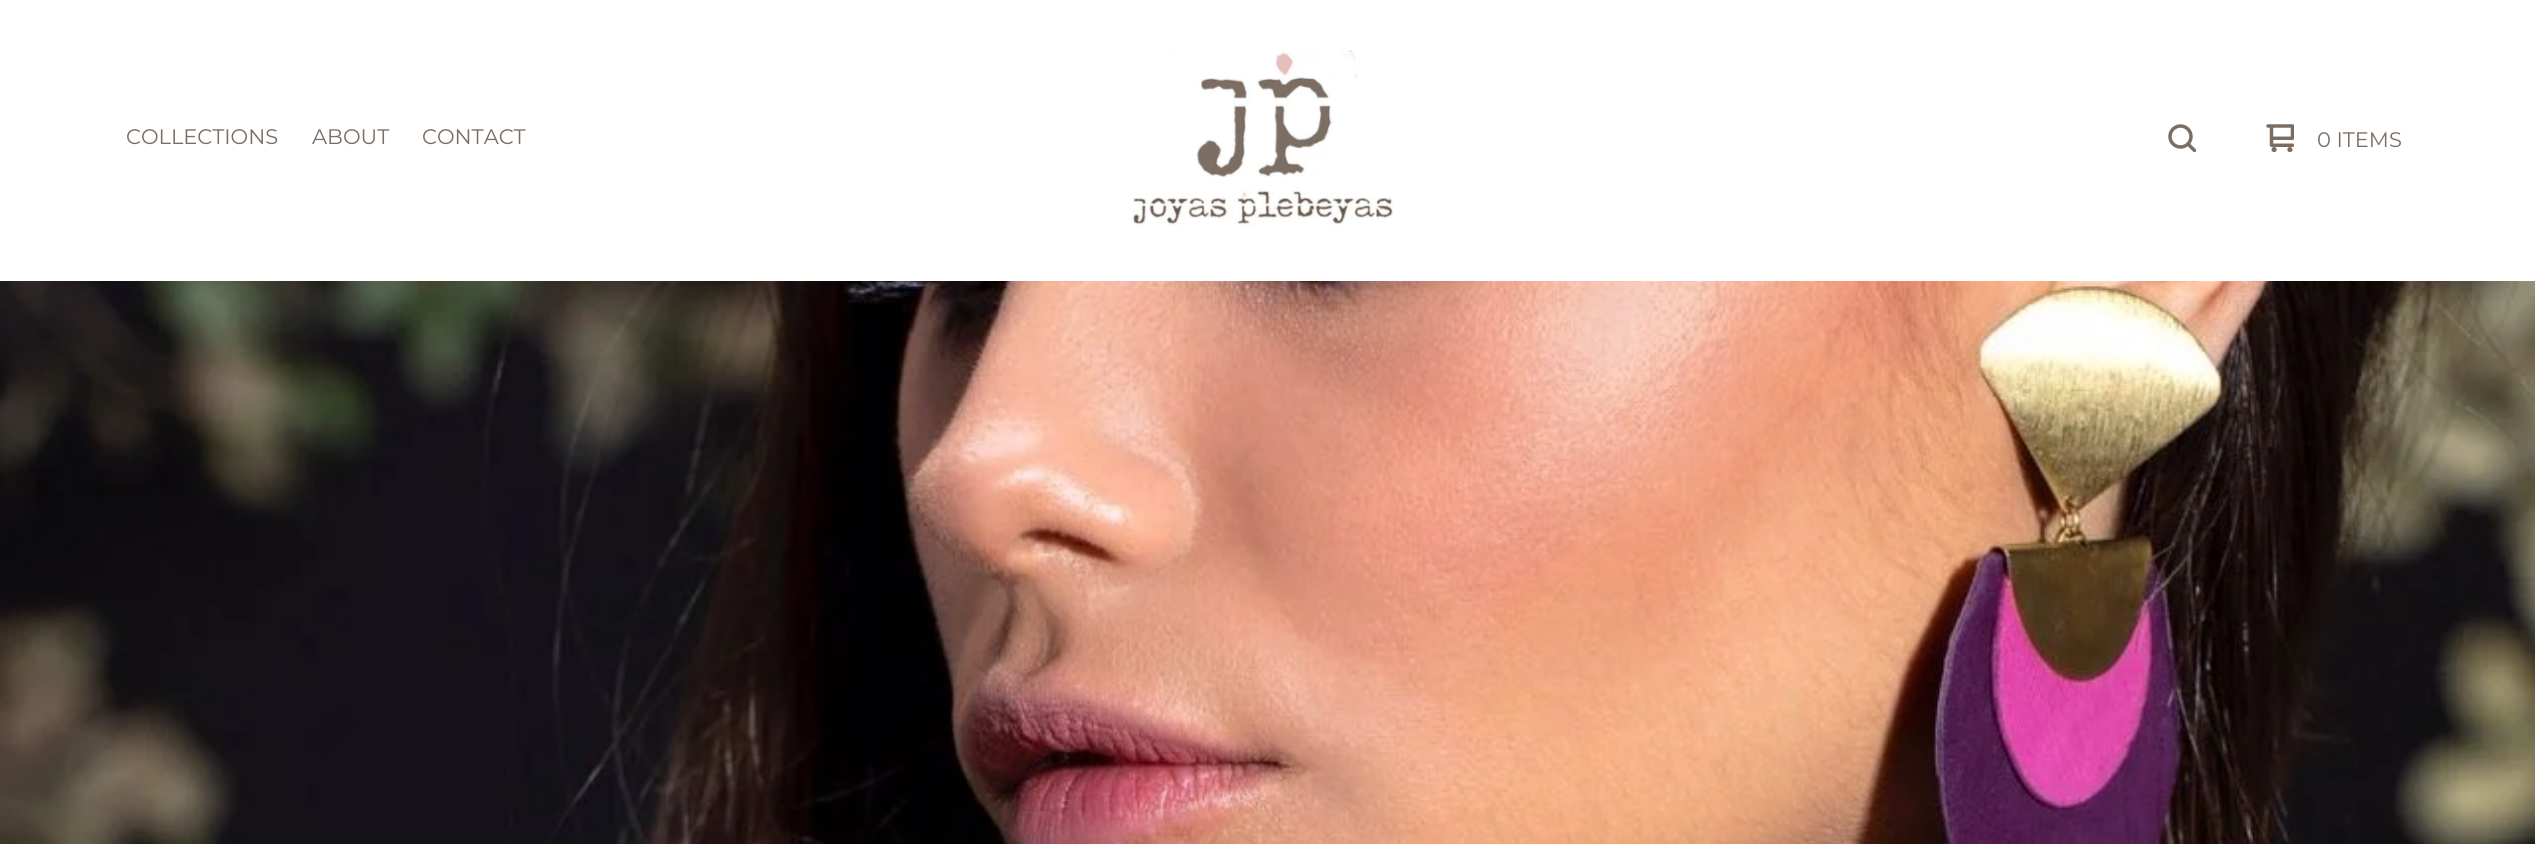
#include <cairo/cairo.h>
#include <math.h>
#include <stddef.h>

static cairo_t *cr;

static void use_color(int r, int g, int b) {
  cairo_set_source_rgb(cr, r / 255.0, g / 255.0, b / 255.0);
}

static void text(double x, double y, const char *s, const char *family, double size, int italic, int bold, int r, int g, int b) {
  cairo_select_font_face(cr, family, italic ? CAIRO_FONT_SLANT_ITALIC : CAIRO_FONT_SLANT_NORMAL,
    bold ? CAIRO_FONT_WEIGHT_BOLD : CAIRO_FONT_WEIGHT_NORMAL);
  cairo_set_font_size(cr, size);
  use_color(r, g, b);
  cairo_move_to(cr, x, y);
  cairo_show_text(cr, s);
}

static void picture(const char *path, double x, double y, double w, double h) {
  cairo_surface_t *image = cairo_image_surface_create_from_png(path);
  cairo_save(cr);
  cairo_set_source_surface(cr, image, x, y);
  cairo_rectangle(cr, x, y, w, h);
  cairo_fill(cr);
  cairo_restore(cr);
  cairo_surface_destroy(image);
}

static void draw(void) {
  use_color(255, 255, 255);
  cairo_paint(cr);
  picture("img_01.png", 1133, 50, 261, 176);
  picture("img_02.png", 2168, 124, 28, 28);
  picture("img_03.png", 2266, 124, 28, 28);
  picture("img_04.png", 0, 281, 2535, 563);
  text(126, 144, "COLLECTIONS", "Montserrat", 21, 0, 0, 124, 109, 99);
  text(312, 144, "ABOUT", "Montserrat", 21, 0, 0, 124, 109, 99);
  text(422, 144, "CONTACT", "Montserrat", 21, 0, 0, 124, 109, 99);
  text(2317, 147, "0 ITEMS", "Montserrat", 21, 0, 0, 124, 109, 99);
}

int main(void) {
  cairo_surface_t *surface = cairo_image_surface_create(CAIRO_FORMAT_RGB24, 2535, 844);
  cr = cairo_create(surface);
  cairo_font_options_t *options = cairo_font_options_create();
  cairo_font_options_set_hint_metrics(options, CAIRO_HINT_METRICS_OFF);
  cairo_font_options_set_hint_style(options, CAIRO_HINT_STYLE_NONE);
  cairo_set_font_options(cr, options);
  cairo_set_miter_limit(cr, 4);
  draw();
  cairo_surface_write_to_png(surface, "out.png");
  cairo_font_options_destroy(options);
  cairo_destroy(cr);
  cairo_surface_destroy(surface);
  return 0;
}
